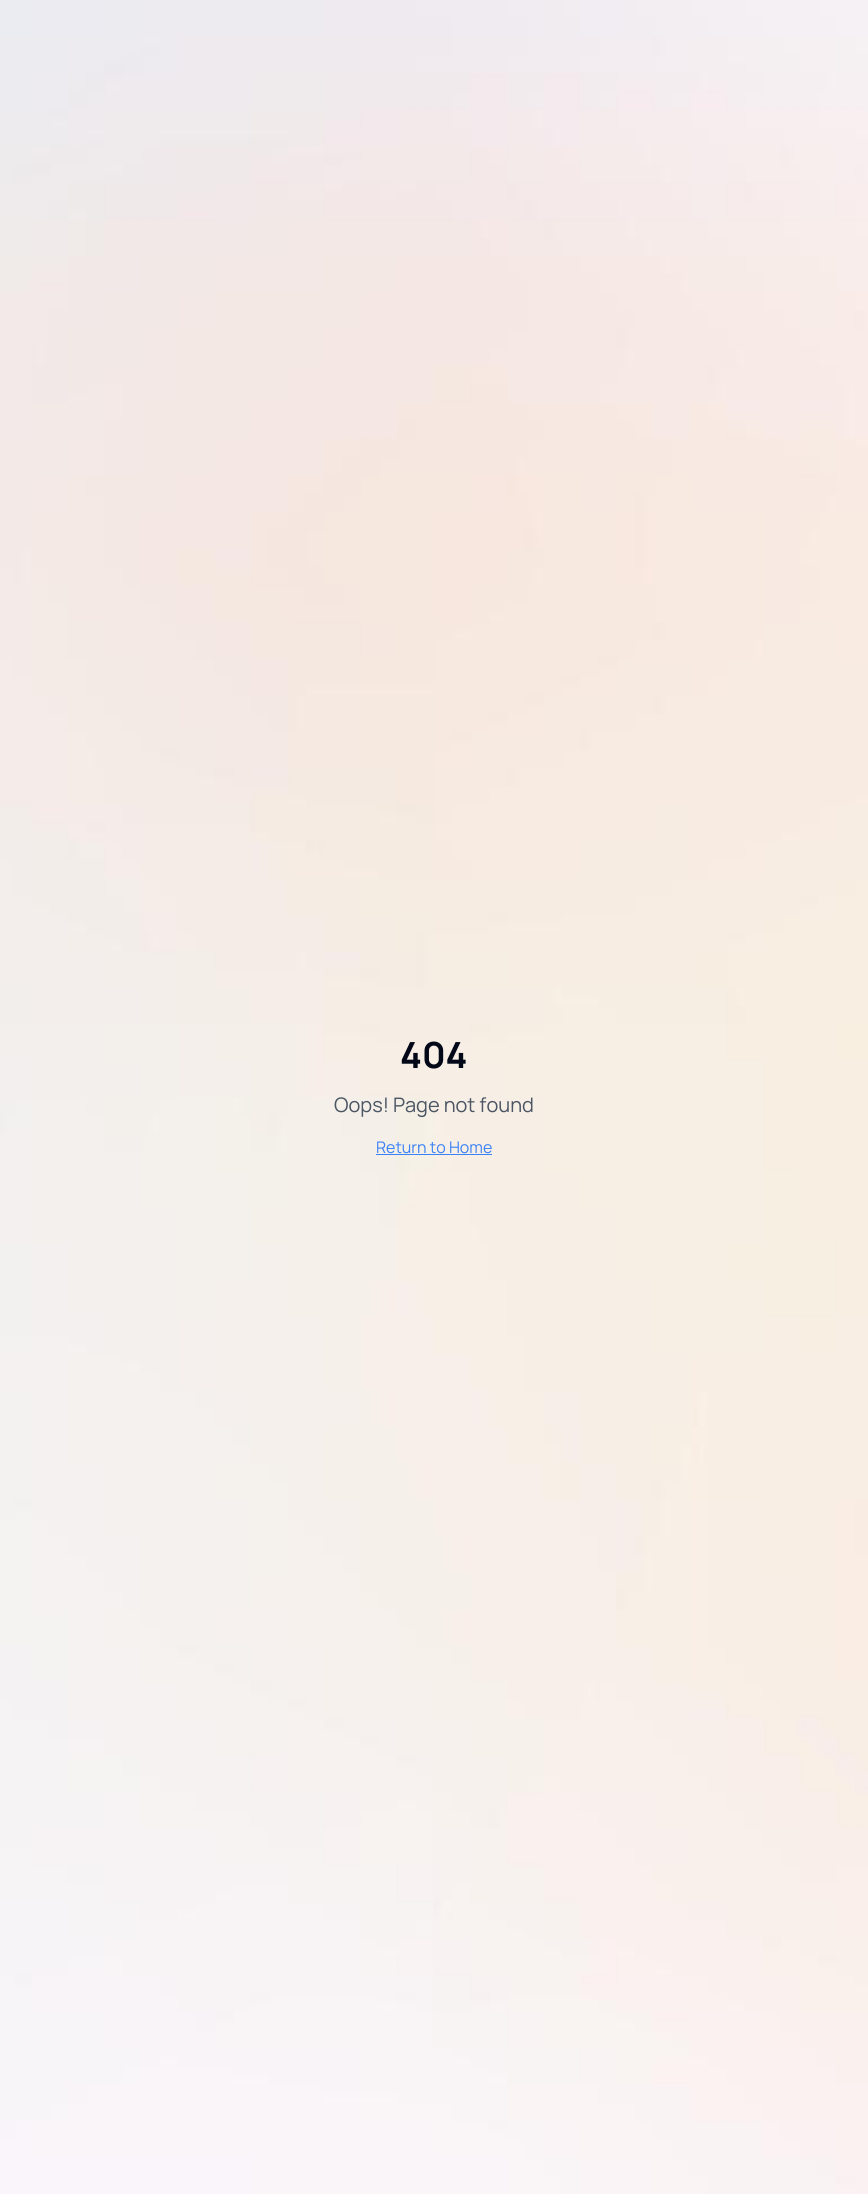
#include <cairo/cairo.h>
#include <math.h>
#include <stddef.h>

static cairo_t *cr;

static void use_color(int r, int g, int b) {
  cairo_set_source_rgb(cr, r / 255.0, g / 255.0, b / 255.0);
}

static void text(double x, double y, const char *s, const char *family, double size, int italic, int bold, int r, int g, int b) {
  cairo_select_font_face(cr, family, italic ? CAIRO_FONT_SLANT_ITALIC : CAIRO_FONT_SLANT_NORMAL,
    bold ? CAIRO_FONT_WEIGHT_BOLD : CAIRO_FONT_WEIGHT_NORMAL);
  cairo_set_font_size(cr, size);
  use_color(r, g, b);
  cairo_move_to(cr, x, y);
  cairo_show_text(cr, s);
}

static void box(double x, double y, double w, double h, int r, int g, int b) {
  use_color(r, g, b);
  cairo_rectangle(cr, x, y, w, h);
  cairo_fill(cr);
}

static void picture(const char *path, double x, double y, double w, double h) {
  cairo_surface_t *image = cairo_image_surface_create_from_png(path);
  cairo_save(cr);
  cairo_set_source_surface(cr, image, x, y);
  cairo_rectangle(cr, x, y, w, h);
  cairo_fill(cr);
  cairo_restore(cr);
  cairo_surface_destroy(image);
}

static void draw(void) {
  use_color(255, 255, 255);
  cairo_paint(cr);
  picture("img_01.png", 0, 0, 868, 2194);
  box(376, 1154, 116, 1, 59, 130, 246);
  text(400, 1068, "404", "Manrope", 36, 0, 1, 2, 8, 23);
  text(334, 1112, "Oops! Page not found", "Manrope", 20, 0, 0, 75, 85, 99);
  text(376, 1153, "Return to Home", "Manrope", 16, 0, 0, 59, 130, 246);
}

int main(void) {
  cairo_surface_t *surface = cairo_image_surface_create(CAIRO_FORMAT_RGB24, 868, 2194);
  cr = cairo_create(surface);
  cairo_font_options_t *options = cairo_font_options_create();
  cairo_font_options_set_hint_metrics(options, CAIRO_HINT_METRICS_OFF);
  cairo_font_options_set_hint_style(options, CAIRO_HINT_STYLE_NONE);
  cairo_set_font_options(cr, options);
  cairo_set_miter_limit(cr, 4);
  draw();
  cairo_surface_write_to_png(surface, "out.png");
  cairo_font_options_destroy(options);
  cairo_destroy(cr);
  cairo_surface_destroy(surface);
  return 0;
}
